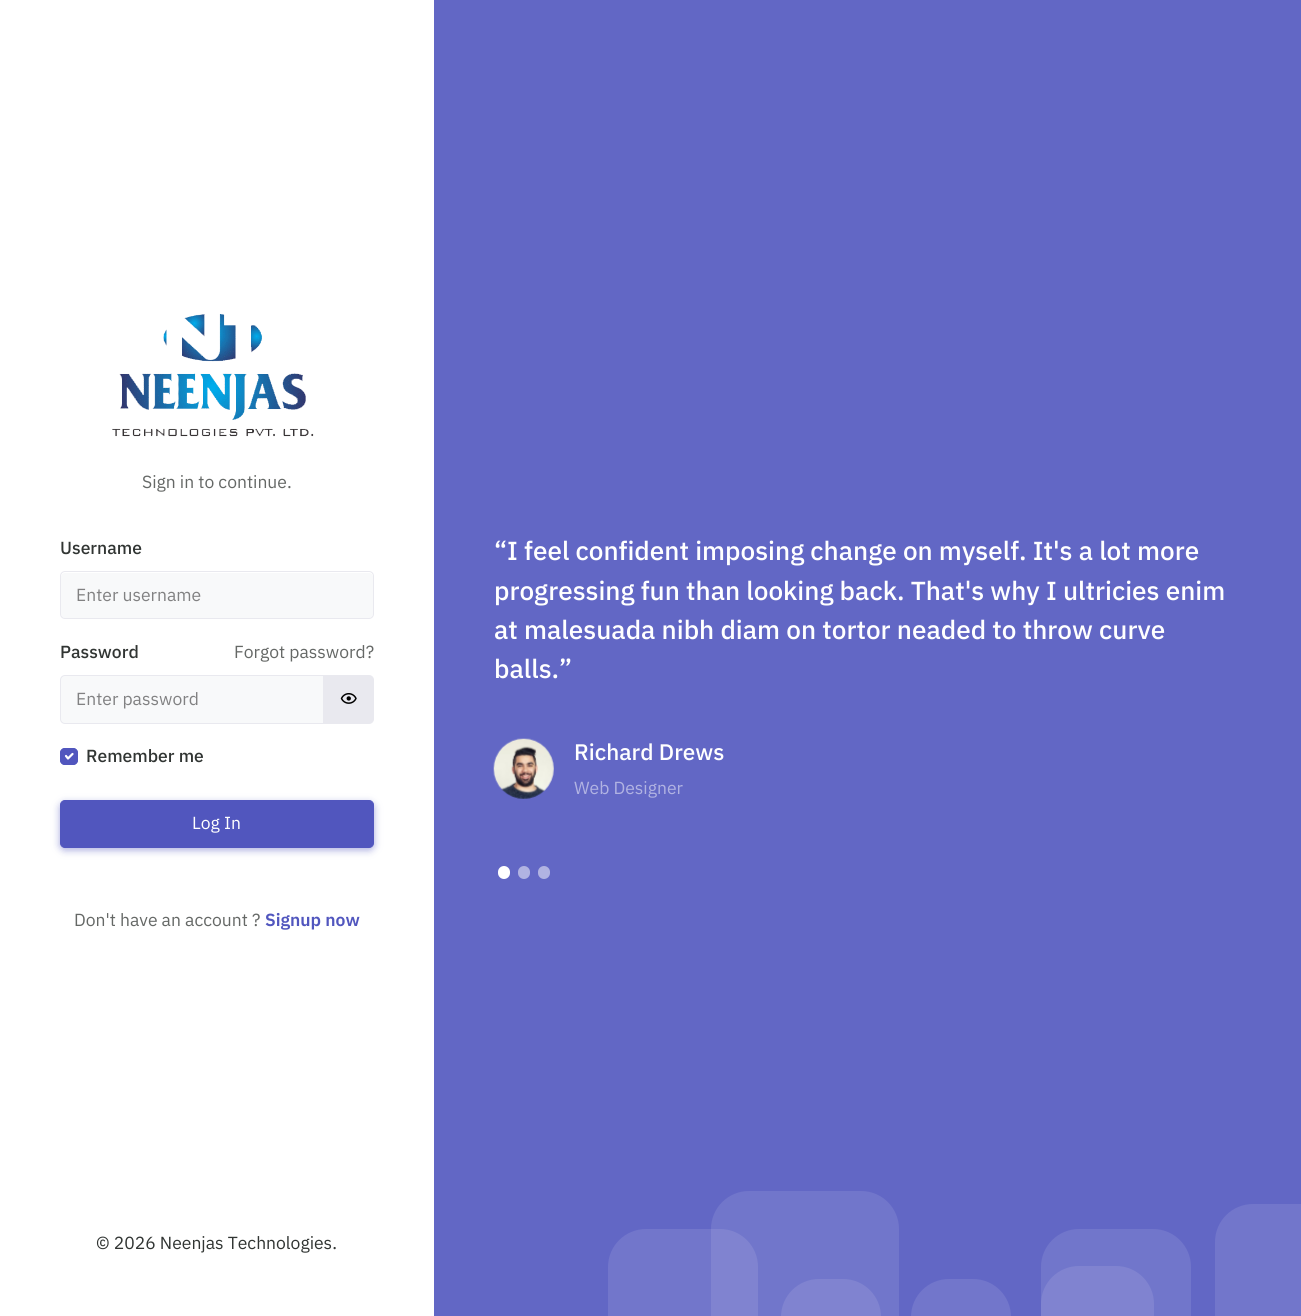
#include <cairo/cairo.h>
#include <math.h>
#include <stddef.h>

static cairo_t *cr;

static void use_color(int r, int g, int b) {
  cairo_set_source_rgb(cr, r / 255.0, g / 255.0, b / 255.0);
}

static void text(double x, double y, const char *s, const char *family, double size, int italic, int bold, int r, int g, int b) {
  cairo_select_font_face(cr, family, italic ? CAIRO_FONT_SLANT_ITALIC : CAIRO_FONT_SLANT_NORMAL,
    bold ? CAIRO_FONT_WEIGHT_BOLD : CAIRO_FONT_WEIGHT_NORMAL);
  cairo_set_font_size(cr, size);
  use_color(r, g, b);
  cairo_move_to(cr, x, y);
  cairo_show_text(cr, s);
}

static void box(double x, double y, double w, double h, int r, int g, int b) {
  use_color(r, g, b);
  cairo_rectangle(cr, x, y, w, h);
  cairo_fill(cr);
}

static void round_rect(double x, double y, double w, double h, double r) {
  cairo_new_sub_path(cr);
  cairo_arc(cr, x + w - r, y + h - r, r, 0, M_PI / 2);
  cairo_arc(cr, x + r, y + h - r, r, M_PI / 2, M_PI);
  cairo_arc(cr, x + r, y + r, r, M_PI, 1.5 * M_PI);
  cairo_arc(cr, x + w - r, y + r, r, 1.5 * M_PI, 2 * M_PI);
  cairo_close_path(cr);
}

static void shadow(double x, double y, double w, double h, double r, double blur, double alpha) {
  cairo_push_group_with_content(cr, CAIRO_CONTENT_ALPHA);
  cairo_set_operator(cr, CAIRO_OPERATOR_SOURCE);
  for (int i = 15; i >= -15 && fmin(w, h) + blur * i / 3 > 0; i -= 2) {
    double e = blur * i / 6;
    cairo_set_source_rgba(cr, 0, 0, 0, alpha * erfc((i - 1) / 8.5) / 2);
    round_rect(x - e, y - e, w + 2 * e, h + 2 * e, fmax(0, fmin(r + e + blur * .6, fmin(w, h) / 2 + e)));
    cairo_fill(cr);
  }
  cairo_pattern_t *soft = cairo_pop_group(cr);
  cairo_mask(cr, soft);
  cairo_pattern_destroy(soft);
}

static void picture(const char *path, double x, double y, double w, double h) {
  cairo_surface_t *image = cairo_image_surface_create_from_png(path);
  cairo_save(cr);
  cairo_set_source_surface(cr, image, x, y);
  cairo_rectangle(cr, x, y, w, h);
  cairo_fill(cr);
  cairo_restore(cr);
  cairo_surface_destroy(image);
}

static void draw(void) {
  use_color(255, 255, 255);
  cairo_paint(cr);
  picture("img_01.png", 112, 314, 202, 123);
  use_color(248, 249, 250);
  round_rect(61, 573, 312, 45, 4);
  cairo_fill(cr);
  round_rect(60.5, 571.5, 313, 47, 4.5);
  use_color(233, 233, 239);
  cairo_set_line_width(cr, 1);
  cairo_stroke(cr);
  use_color(248, 249, 250);
  cairo_new_path(cr);
  cairo_move_to(cr, 65, 675.5);
  cairo_line_to(cr, 323.5, 675.5);
  cairo_line_to(cr, 323.5, 723.5);
  cairo_line_to(cr, 65, 723.5);
  cairo_curve_to(cr, 62.5, 723.5, 60.5, 721.5, 60.5, 719);
  cairo_line_to(cr, 60.5, 680);
  cairo_curve_to(cr, 60.5, 677.5, 62.5, 675.5, 65, 675.5);
  cairo_close_path(cr);
  cairo_fill_preserve(cr);
  use_color(233, 233, 239);
  cairo_stroke(cr);
  cairo_new_path(cr);
  cairo_move_to(cr, 324.5, 675.5);
  cairo_line_to(cr, 369, 675.5);
  cairo_curve_to(cr, 371.5, 675.5, 373.5, 677.5, 373.5, 680);
  cairo_line_to(cr, 373.5, 719);
  cairo_curve_to(cr, 373.5, 721.5, 371.5, 723.5, 369, 723.5);
  cairo_line_to(cr, 324.5, 723.5);
  cairo_close_path(cr);
  cairo_fill_preserve(cr);
  cairo_stroke(cr);
  picture("img_02.png", 340, 693, 17, 11);
  use_color(81, 86, 190);
  round_rect(60, 748, 18, 17, 5);
  cairo_fill(cr);
  cairo_new_path(cr);
  cairo_move_to(cr, 66, 756);
  cairo_line_to(cr, 68, 758.5);
  cairo_line_to(cr, 72.5, 754);
  use_color(255, 255, 255);
  cairo_set_line_width(cr, 2.2);
  cairo_set_line_cap(cr, CAIRO_LINE_CAP_ROUND);
  cairo_set_line_join(cr, CAIRO_LINE_JOIN_ROUND);
  cairo_stroke(cr);
  round_rect(60.5, 748.5, 17, 16, 4.5);
  use_color(81, 86, 190);
  cairo_set_line_width(cr, 1);
  cairo_set_line_cap(cr, CAIRO_LINE_CAP_BUTT);
  cairo_set_line_join(cr, CAIRO_LINE_JOIN_MITER);
  cairo_stroke(cr);
  use_color(81, 86, 190);
  shadow(60, 803, 314, 47, 5, 4, 0.5);
  use_color(81, 86, 190);
  round_rect(60.5, 800.5, 313, 47, 4.5);
  cairo_fill_preserve(cr);
  cairo_stroke(cr);
  box(434, 0, 867, 1316, 98, 103, 197);
  picture("img_03.png", 493, 738, 61, 61);
  use_color(255, 255, 255);
  round_rect(498, 866, 12, 13, 6);
  cairo_fill(cr);
  use_color(177, 179, 226);
  round_rect(518, 866, 12, 13, 6);
  cairo_fill(cr);
  round_rect(538, 866, 12, 13, 6);
  cairo_fill(cr);
  use_color(114, 118, 203);
  cairo_new_path(cr);
  cairo_move_to(cr, 646, 1229);
  cairo_line_to(cr, 720, 1229);
  cairo_curve_to(cr, 741, 1229, 758, 1246, 758, 1267);
  cairo_line_to(cr, 758, 1316);
  cairo_line_to(cr, 608, 1316);
  cairo_line_to(cr, 608, 1267);
  cairo_curve_to(cr, 608, 1246, 625, 1229, 646, 1229);
  cairo_close_path(cr);
  cairo_fill(cr);
  cairo_new_path(cr);
  cairo_move_to(cr, 819, 1279);
  cairo_line_to(cr, 843, 1279);
  cairo_curve_to(cr, 864, 1279, 881, 1296, 881, 1317);
  cairo_line_to(cr, 881, 1316);
  cairo_line_to(cr, 781, 1316);
  cairo_line_to(cr, 781, 1317);
  cairo_curve_to(cr, 781, 1296, 798, 1279, 819, 1279);
  cairo_close_path(cr);
  cairo_fill(cr);
  cairo_set_source_rgba(cr, 1, 1, 1, 0.1);
  cairo_new_path(cr);
  cairo_move_to(cr, 749, 1191);
  cairo_line_to(cr, 861, 1191);
  cairo_curve_to(cr, 882, 1191, 899, 1208, 899, 1229);
  cairo_line_to(cr, 899, 1316);
  cairo_line_to(cr, 711, 1316);
  cairo_line_to(cr, 711, 1229);
  cairo_curve_to(cr, 711, 1208, 728, 1191, 749, 1191);
  cairo_close_path(cr);
  cairo_fill(cr);
  use_color(114, 118, 203);
  cairo_new_path(cr);
  cairo_move_to(cr, 1079, 1266);
  cairo_line_to(cr, 1116, 1266);
  cairo_curve_to(cr, 1137, 1266, 1154, 1283, 1154, 1304);
  cairo_line_to(cr, 1154, 1316);
  cairo_line_to(cr, 1041, 1316);
  cairo_line_to(cr, 1041, 1304);
  cairo_curve_to(cr, 1041, 1283, 1058, 1266, 1079, 1266);
  cairo_close_path(cr);
  cairo_fill(cr);
  cairo_set_source_rgba(cr, 1, 1, 1, 0.1);
  cairo_new_path(cr);
  cairo_move_to(cr, 1079, 1229);
  cairo_line_to(cr, 1153, 1229);
  cairo_curve_to(cr, 1174, 1229, 1191, 1246, 1191, 1267);
  cairo_line_to(cr, 1191, 1316);
  cairo_line_to(cr, 1041, 1316);
  cairo_line_to(cr, 1041, 1267);
  cairo_curve_to(cr, 1041, 1246, 1058, 1229, 1079, 1229);
  cairo_close_path(cr);
  cairo_fill(cr);
  use_color(114, 118, 203);
  cairo_new_path(cr);
  cairo_move_to(cr, 1253, 1204);
  cairo_line_to(cr, 1301, 1204);
  cairo_line_to(cr, 1301, 1316);
  cairo_line_to(cr, 1215, 1316);
  cairo_line_to(cr, 1215, 1242);
  cairo_curve_to(cr, 1215, 1221, 1232, 1204, 1253, 1204);
  cairo_close_path(cr);
  cairo_fill(cr);
  cairo_new_path(cr);
  cairo_move_to(cr, 949, 1279);
  cairo_line_to(cr, 973, 1279);
  cairo_curve_to(cr, 994, 1279, 1011, 1296, 1011, 1317);
  cairo_line_to(cr, 1011, 1316);
  cairo_line_to(cr, 911, 1316);
  cairo_line_to(cr, 911, 1317);
  cairo_curve_to(cr, 911, 1296, 928, 1279, 949, 1279);
  cairo_close_path(cr);
  cairo_fill(cr);
  text(142, 488, "Sign in to continue.", "IBM Plex Sans", 17.5, 0, 0, 101, 104, 102);
  text(60, 554, "Username", "IBM Plex Sans Medium", 17.5, 0, 0, 49, 53, 51);
  text(76, 601, "Enter username", "IBM Plex Sans", 17.5, 0, 0, 129, 129, 130);
  text(60, 658, "Password", "IBM Plex Sans Medium", 17.5, 0, 0, 49, 53, 51);
  text(234, 658, "Forgot password?", "IBM Plex Sans", 17.5, 0, 0, 101, 104, 102);
  text(76, 705, "Enter password", "IBM Plex Sans", 17.5, 0, 0, 129, 129, 130);
  text(86, 762, "Remember me", "IBM Plex Sans Medium", 17.5, 0, 0, 49, 53, 51);
  text(192, 829, "Log In", "IBM Plex Sans", 17.5, 0, 0, 255, 255, 255);
  text(74, 926, "Don't have an account ?", "IBM Plex Sans", 17.5, 0, 0, 101, 104, 102);
  text(265, 926, "Signup now", "IBM Plex Sans SemiBold", 17.5, 0, 0, 81, 86, 190);
  text(96, 1249, "© 2026 Neenjas Technologies.", "IBM Plex Sans", 17.5, 0, 0, 49, 53, 51);
  text(494, 560, "“I feel confident imposing change on myself. It's a lot more", "IBM Plex Sans Medium", 26.1, 0, 0, 255, 255, 255);
  text(494, 600, "progressing fun than looking back. That's why I ultricies enim", "IBM Plex Sans Medium", 26.1, 0, 0, 255, 255, 255);
  text(494, 639, "at malesuada nibh diam on tortor neaded to throw curve", "IBM Plex Sans Medium", 26.1, 0, 0, 255, 255, 255);
  text(494, 678, "balls.”", "IBM Plex Sans Medium", 26.1, 0, 0, 255, 255, 255);
  text(574, 760, "Richard Drews", "IBM Plex Sans Medium", 22.5, 0, 0, 255, 255, 255);
  text(574, 794, "Web Designer", "IBM Plex Sans", 17.5, 0, 0, 177, 179, 226);
}

int main(void) {
  cairo_surface_t *surface = cairo_image_surface_create(CAIRO_FORMAT_RGB24, 1301, 1316);
  cr = cairo_create(surface);
  cairo_font_options_t *options = cairo_font_options_create();
  cairo_font_options_set_hint_metrics(options, CAIRO_HINT_METRICS_OFF);
  cairo_font_options_set_hint_style(options, CAIRO_HINT_STYLE_NONE);
  cairo_set_font_options(cr, options);
  cairo_set_miter_limit(cr, 4);
  draw();
  cairo_surface_write_to_png(surface, "out.png");
  cairo_font_options_destroy(options);
  cairo_destroy(cr);
  cairo_surface_destroy(surface);
  return 0;
}
